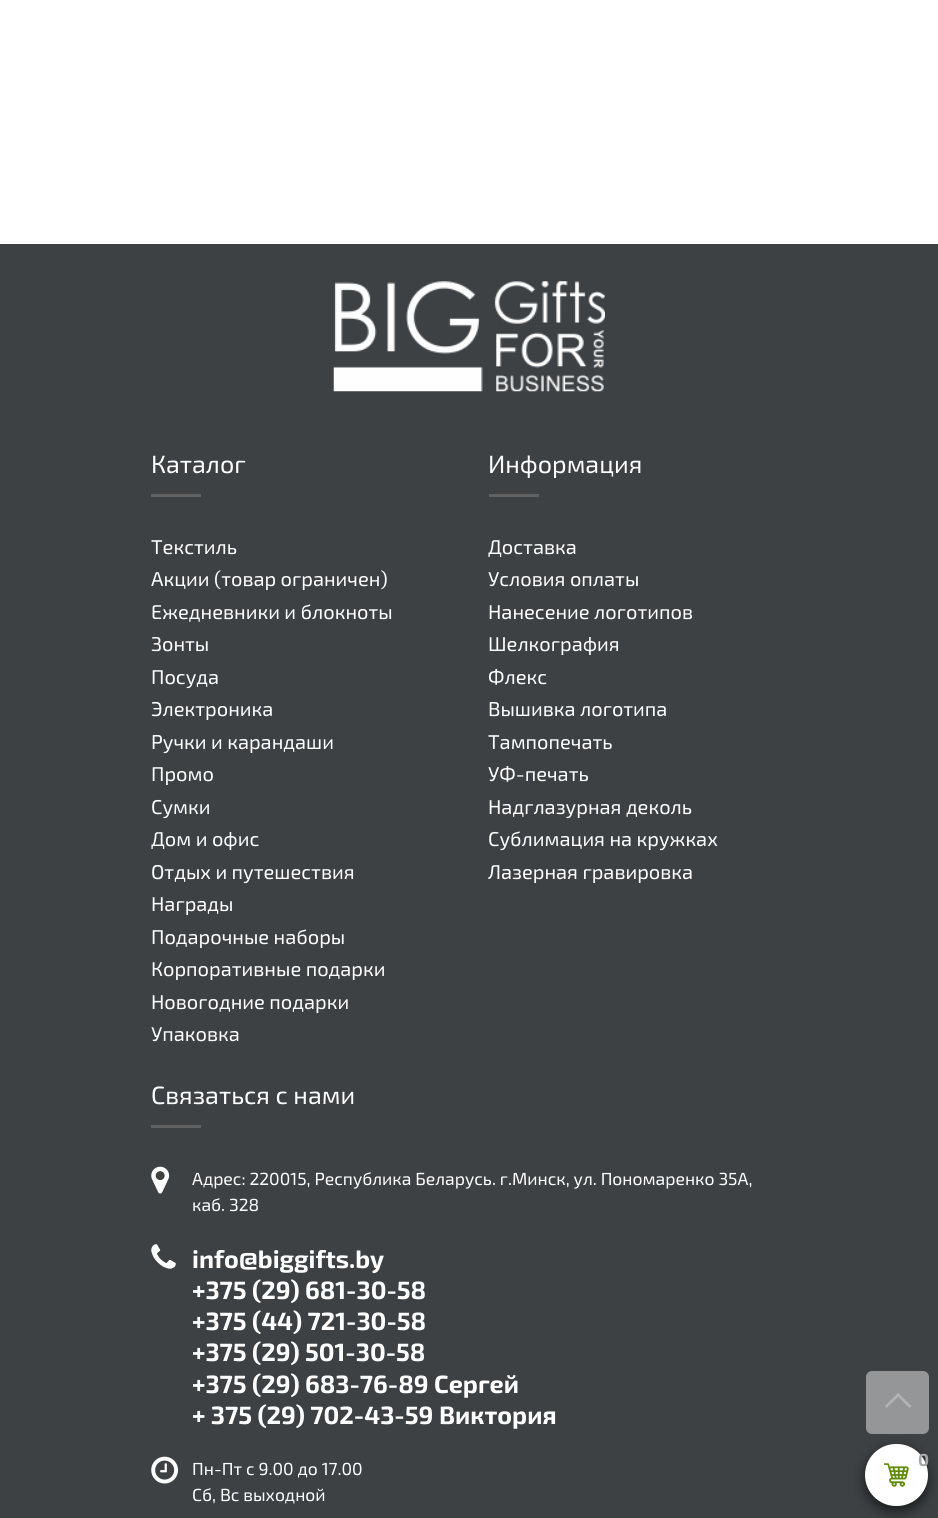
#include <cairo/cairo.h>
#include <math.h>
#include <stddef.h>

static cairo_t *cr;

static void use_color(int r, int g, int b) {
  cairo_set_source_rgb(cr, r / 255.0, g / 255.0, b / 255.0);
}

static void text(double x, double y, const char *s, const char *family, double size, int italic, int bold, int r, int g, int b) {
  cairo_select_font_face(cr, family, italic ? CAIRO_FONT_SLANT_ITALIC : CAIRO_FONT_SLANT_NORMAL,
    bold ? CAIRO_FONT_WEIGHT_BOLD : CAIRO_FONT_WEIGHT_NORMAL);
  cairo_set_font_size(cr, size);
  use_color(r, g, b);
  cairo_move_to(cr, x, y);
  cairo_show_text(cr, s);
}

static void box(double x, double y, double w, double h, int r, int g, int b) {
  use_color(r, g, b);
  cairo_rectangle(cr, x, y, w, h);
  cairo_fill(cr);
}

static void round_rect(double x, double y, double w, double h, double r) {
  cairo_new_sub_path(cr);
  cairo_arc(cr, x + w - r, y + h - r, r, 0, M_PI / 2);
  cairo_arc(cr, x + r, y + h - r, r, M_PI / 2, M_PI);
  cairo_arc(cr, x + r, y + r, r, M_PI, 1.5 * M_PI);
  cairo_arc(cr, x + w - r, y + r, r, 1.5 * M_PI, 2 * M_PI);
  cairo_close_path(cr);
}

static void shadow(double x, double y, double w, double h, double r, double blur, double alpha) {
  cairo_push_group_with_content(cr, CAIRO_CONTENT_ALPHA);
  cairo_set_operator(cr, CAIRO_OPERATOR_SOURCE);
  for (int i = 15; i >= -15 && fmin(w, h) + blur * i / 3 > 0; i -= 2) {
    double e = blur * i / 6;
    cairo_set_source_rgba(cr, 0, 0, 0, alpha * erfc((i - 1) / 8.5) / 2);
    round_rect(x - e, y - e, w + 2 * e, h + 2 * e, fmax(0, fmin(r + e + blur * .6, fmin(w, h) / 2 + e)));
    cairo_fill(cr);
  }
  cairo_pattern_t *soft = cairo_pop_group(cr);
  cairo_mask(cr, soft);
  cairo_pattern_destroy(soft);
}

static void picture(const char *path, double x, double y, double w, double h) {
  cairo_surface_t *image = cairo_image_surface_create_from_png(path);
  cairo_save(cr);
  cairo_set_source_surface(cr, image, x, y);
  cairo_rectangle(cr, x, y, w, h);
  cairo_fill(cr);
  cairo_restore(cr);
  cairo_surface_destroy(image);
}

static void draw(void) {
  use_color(255, 255, 255);
  cairo_paint(cr);
  box(0, 244, 938, 1274, 61, 65, 68);
  picture("img_01.png", 333, 281, 272, 111);
  box(151, 494, 50, 3, 97, 97, 97);
  box(489, 494, 50, 3, 97, 97, 97);
  box(151, 1125, 50, 3, 97, 97, 97);
  picture("img_02.png", 151, 1166, 19, 28);
  picture("img_03.png", 151, 1244, 25, 25);
  picture("img_04.png", 151, 1456, 27, 28);
  use_color(148, 150, 151);
  round_rect(866, 1371, 63, 63, 6);
  cairo_fill(cr);
  use_color(177, 179, 180);
  cairo_new_path(cr);
  cairo_move_to(cr, 885, 1406);
  cairo_line_to(cr, 898, 1393);
  cairo_line_to(cr, 900, 1395);
  cairo_line_to(cr, 886.5, 1408);
  cairo_close_path(cr);
  cairo_fill(cr);
  cairo_new_path(cr);
  cairo_move_to(cr, 896.5, 1395);
  cairo_line_to(cr, 898, 1393);
  cairo_line_to(cr, 911.5, 1406);
  cairo_line_to(cr, 909.5, 1408);
  cairo_close_path(cr);
  cairo_fill(cr);
  use_color(0, 0, 0);
  shadow(865, 1449, 63, 62, 31, 6, 0.6);
  use_color(255, 255, 255);
  round_rect(865, 1444, 63, 62, 31);
  cairo_fill(cr);
  picture("img_05.png", 884, 1463, 25, 24);
  text(151, 473, "Каталог", "Exo 2", 25, 0, 0, 255, 255, 255);
  text(151, 554, "Текстиль", "Exo 2", 20, 0, 0, 255, 255, 255);
  text(151, 586, "Акции (товар ограничен)", "Exo 2", 20, 0, 0, 255, 255, 255);
  text(151, 619, "Ежедневники и блокноты", "Exo 2", 20, 0, 0, 255, 255, 255);
  text(151, 651, "Зонты", "Exo 2", 20, 0, 0, 255, 255, 255);
  text(151, 684, "Посуда", "Exo 2", 20, 0, 0, 255, 255, 255);
  text(151, 716, "Электроника", "Exo 2", 20, 0, 0, 255, 255, 255);
  text(151, 749, "Ручки и карандаши", "Exo 2", 20, 0, 0, 255, 255, 255);
  text(151, 781, "Промо", "Exo 2", 20, 0, 0, 255, 255, 255);
  text(151, 814, "Сумки", "Exo 2", 20, 0, 0, 255, 255, 255);
  text(151, 846, "Дом и офис", "Exo 2", 20, 0, 0, 255, 255, 255);
  text(151, 879, "Отдых и путешествия", "Exo 2", 20, 0, 0, 255, 255, 255);
  text(151, 911, "Награды", "Exo 2", 20, 0, 0, 255, 255, 255);
  text(151, 944, "Подарочные наборы", "Exo 2", 20, 0, 0, 255, 255, 255);
  text(151, 976, "Корпоративные подарки", "Exo 2", 20, 0, 0, 255, 255, 255);
  text(151, 1009, "Новогодние подарки", "Exo 2", 20, 0, 0, 255, 255, 255);
  text(151, 1041, "Упаковка", "Exo 2", 20, 0, 0, 255, 255, 255);
  text(488, 473, "Информация", "Exo 2", 25, 0, 0, 255, 255, 255);
  text(488, 554, "Доставка", "Exo 2", 20, 0, 0, 255, 255, 255);
  text(488, 586, "Условия оплаты", "Exo 2", 20, 0, 0, 255, 255, 255);
  text(488, 619, "Нанесение логотипов", "Exo 2", 20, 0, 0, 255, 255, 255);
  text(488, 651, "Шелкография", "Exo 2", 20, 0, 0, 255, 255, 255);
  text(488, 684, "Флекс", "Exo 2", 20, 0, 0, 255, 255, 255);
  text(488, 716, "Вышивка логотипа", "Exo 2", 20, 0, 0, 255, 255, 255);
  text(488, 749, "Тампопечать", "Exo 2", 20, 0, 0, 255, 255, 255);
  text(488, 781, "УФ-печать", "Exo 2", 20, 0, 0, 255, 255, 255);
  text(488, 814, "Надглазурная деколь", "Exo 2", 20, 0, 0, 255, 255, 255);
  text(488, 846, "Сублимация на кружках", "Exo 2", 20, 0, 0, 255, 255, 255);
  text(488, 879, "Лазерная гравировка", "Exo 2", 20, 0, 0, 255, 255, 255);
  text(151, 1104, "Связаться с нами", "Exo 2", 25, 0, 0, 255, 255, 255);
  text(192, 1185, "Адрес: 220015, Республика Беларусь. г.Минск, ул. Пономаренко 35А,", "Exo 2", 17.5, 0, 0, 255, 255, 255);
  text(192, 1211, "каб. 328", "Exo 2", 17.5, 0, 0, 255, 255, 255);
  text(192, 1268, "info@biggifts.by", "Exo 2", 25, 0, 1, 255, 255, 255);
  text(192, 1299, "+375 (29) 681-30-58", "Exo 2", 25, 0, 1, 255, 255, 255);
  text(192, 1330, "+375 (44) 721-30-58", "Exo 2", 25, 0, 1, 255, 255, 255);
  text(192, 1361, "+375 (29) 501-30-58", "Exo 2", 25, 0, 1, 255, 255, 255);
  text(192, 1393, "+375 (29) 683-76-89", "Exo 2", 25, 0, 1, 255, 255, 255);
  text(434, 1393, "Сергей", "Exo 2", 25, 0, 1, 255, 255, 255);
  text(192, 1424, "+ 375 (29) 702-43-59", "Exo 2", 25, 0, 1, 255, 255, 255);
  text(439, 1424, "Виктория", "Exo 2", 25, 0, 1, 255, 255, 255);
  text(192, 1475, "Пн-Пт с 9.00 до 17.00", "Exo 2", 17.5, 0, 0, 255, 255, 255);
  text(192, 1501, "Сб, Вс выходной", "Exo 2", 17.5, 0, 0, 255, 255, 255);
  text(918, 1466, "0", "Exo 2", 17.5, 0, 1, 166, 168, 169);
}

int main(void) {
  cairo_surface_t *surface = cairo_image_surface_create(CAIRO_FORMAT_RGB24, 938, 1518);
  cr = cairo_create(surface);
  cairo_font_options_t *options = cairo_font_options_create();
  cairo_font_options_set_hint_metrics(options, CAIRO_HINT_METRICS_OFF);
  cairo_font_options_set_hint_style(options, CAIRO_HINT_STYLE_NONE);
  cairo_set_font_options(cr, options);
  cairo_set_miter_limit(cr, 4);
  draw();
  cairo_surface_write_to_png(surface, "out.png");
  cairo_font_options_destroy(options);
  cairo_destroy(cr);
  cairo_surface_destroy(surface);
  return 0;
}
